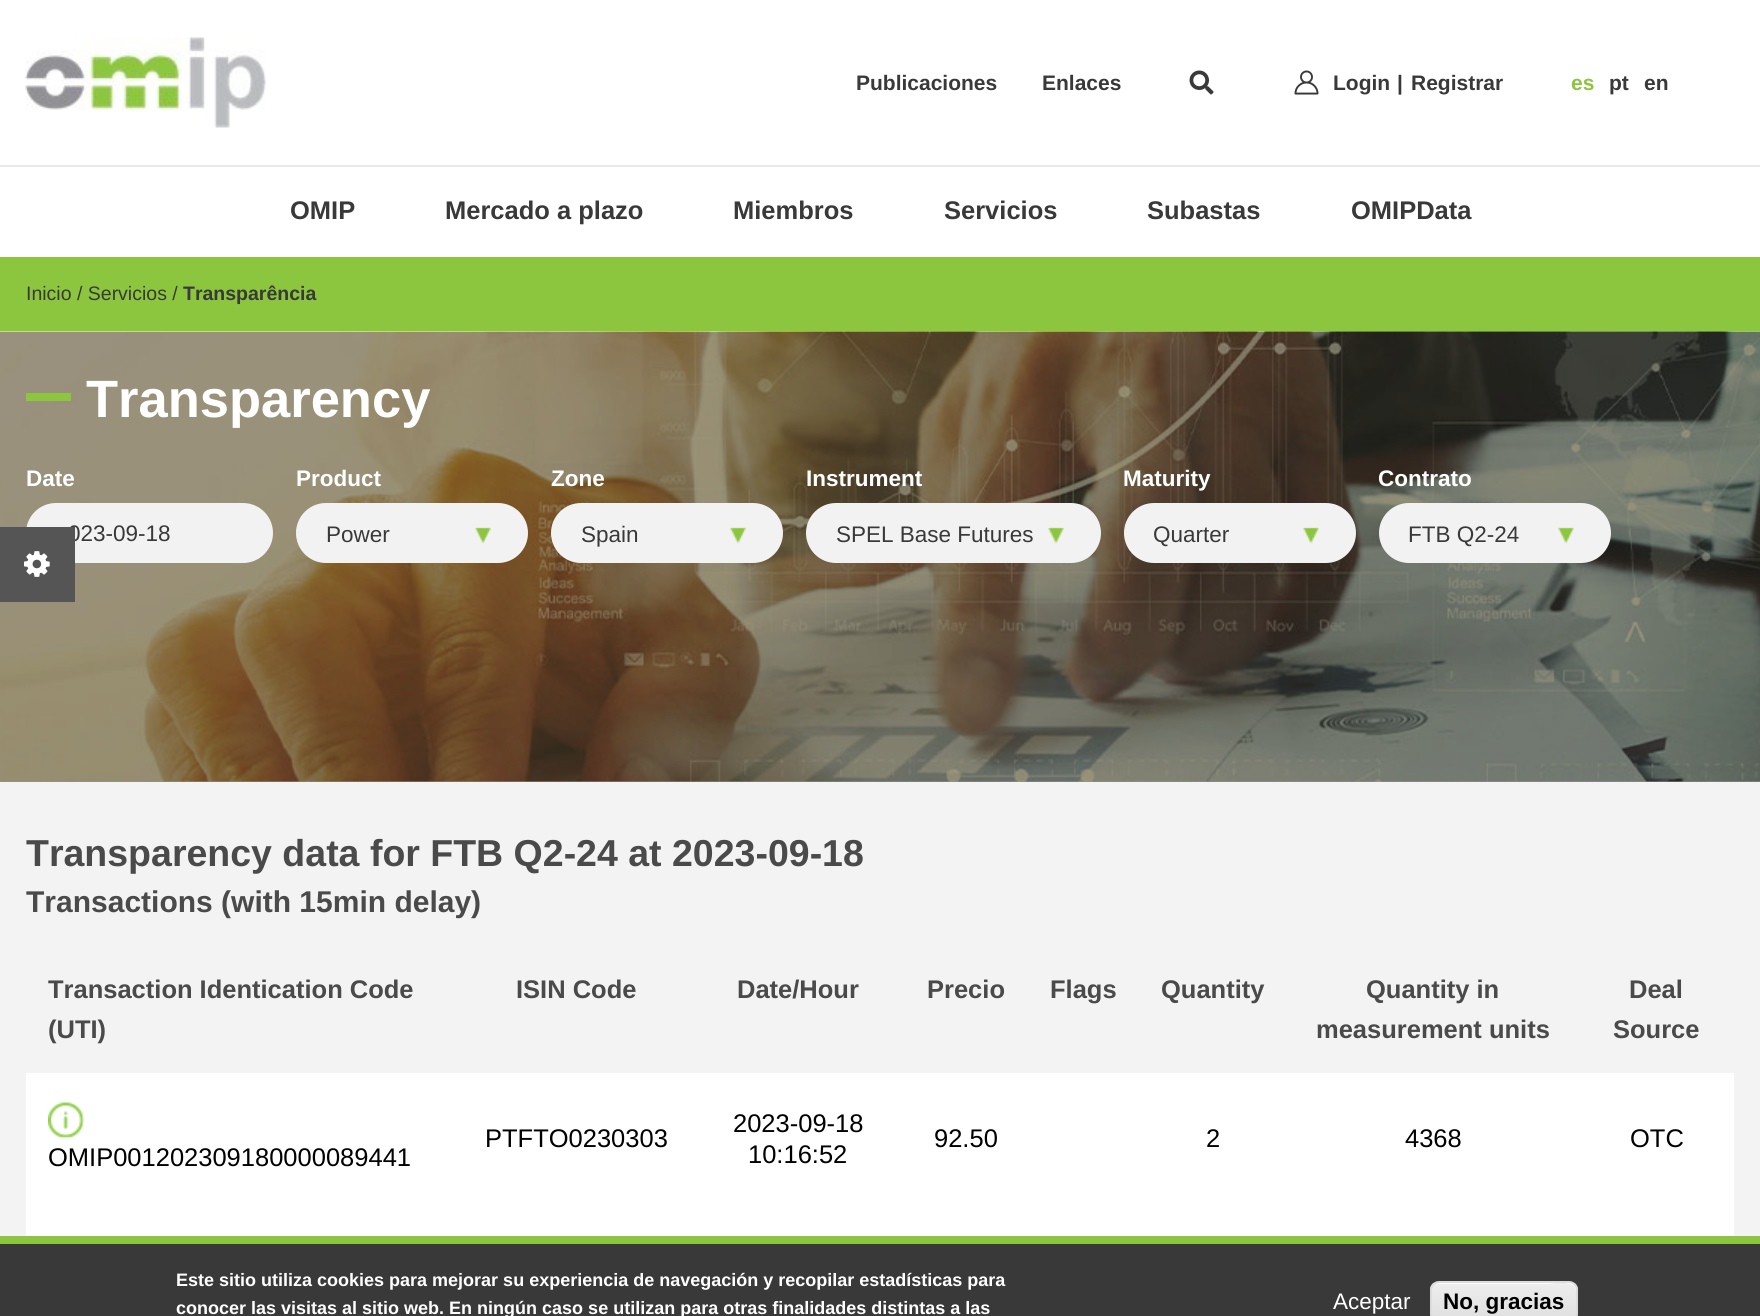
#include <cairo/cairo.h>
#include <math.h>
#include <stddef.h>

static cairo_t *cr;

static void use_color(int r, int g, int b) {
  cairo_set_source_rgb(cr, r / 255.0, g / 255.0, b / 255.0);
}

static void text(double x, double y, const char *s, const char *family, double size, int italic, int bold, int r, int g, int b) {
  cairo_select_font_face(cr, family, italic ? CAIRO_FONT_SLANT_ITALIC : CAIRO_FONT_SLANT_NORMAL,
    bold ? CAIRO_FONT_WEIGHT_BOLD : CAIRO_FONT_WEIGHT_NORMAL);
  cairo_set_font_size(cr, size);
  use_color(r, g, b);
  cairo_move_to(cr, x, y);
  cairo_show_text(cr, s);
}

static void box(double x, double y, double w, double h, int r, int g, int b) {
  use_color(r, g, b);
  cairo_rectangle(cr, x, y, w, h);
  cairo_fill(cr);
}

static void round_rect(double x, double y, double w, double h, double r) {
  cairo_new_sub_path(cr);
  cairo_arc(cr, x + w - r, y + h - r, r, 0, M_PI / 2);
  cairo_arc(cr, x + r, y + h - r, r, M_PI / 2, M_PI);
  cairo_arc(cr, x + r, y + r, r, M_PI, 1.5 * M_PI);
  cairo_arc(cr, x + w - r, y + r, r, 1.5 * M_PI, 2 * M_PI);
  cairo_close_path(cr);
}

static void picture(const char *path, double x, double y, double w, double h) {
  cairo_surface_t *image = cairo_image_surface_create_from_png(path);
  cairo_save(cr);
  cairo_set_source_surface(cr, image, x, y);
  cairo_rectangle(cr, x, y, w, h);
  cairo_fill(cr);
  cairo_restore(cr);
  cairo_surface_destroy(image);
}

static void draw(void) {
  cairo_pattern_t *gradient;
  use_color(255, 255, 255);
  cairo_paint(cr);
  picture("img_01.png", 25, 37, 241, 91);
  picture("img_02.png", 1189, 70, 25, 25);
  picture("img_03.png", 1294, 70, 25, 25);
  box(0, 165, 1760, 2, 233, 233, 233);
  box(0, 257, 1760, 75, 140, 198, 62);
  box(0, 782, 1760, 454, 243, 243, 243);
  box(0, 781, 1760, 1, 146, 146, 146);
  picture("img_04.png", 0, 331, 1760, 451);
  box(26, 393, 45, 8, 140, 198, 62);
  use_color(242, 242, 242);
  round_rect(26, 503, 247, 60, 30);
  cairo_fill(cr);
  round_rect(296, 503, 232, 60, 30);
  cairo_fill(cr);
  picture("img_05.png", 475, 527, 16, 17);
  round_rect(551, 503, 232, 60, 30);
  cairo_fill(cr);
  picture("img_05.png", 730, 527, 16, 17);
  round_rect(806, 503, 295, 60, 30);
  cairo_fill(cr);
  picture("img_05.png", 1048, 527, 16, 17);
  round_rect(1124, 503, 232, 60, 30);
  cairo_fill(cr);
  picture("img_06.png", 1303, 527, 16, 17);
  round_rect(1379, 503, 232, 60, 30);
  cairo_fill(cr);
  picture("img_06.png", 1558, 527, 16, 17);
  box(26, 1073, 1708, 136, 255, 255, 255);
  picture("img_07.png", 48, 1102, 36, 37);
  box(26, 1209, 1708, 27, 255, 255, 255);
  box(0, 1244, 1760, 72, 57, 57, 57);
  box(0, 1236, 1760, 8, 140, 198, 62);
  cairo_save(cr);
  round_rect(1430, 1281, 148, 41, 9);
  cairo_clip(cr);
  gradient = cairo_pattern_create_linear(1504, 1283, 1504, 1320);
  cairo_pattern_add_color_stop_rgba(gradient, 0.05, 0.929, 0.929, 0.929, 1);
  cairo_pattern_add_color_stop_rgba(gradient, 1, 0.875, 0.875, 0.875, 1);
  cairo_set_source(cr, gradient);
  cairo_pattern_destroy(gradient);
  cairo_rectangle(cr, 1430, 1283, 148, 33);
  cairo_fill(cr);
  cairo_restore(cr);
  use_color(255, 255, 255);
  cairo_new_path(cr);
  cairo_move_to(cr, 1438, 1284);
  cairo_line_to(cr, 1547, 1284);
  cairo_curve_to(cr, 1551, 1284, 1574, 1279, 1576, 1290);
  cairo_line_to(cr, 1576, 1316);
  cairo_curve_to(cr, 1576, 1315, 1577, 1314, 1577, 1312);
  cairo_line_to(cr, 1577, 1291);
  cairo_curve_to(cr, 1577, 1287, 1573, 1283, 1569, 1283);
  cairo_line_to(cr, 1439, 1283);
  cairo_curve_to(cr, 1435, 1283, 1431, 1287, 1431, 1291);
  cairo_line_to(cr, 1431, 1292);
  cairo_curve_to(cr, 1431, 1287, 1434, 1284, 1438, 1284);
  cairo_close_path(cr);
  cairo_fill(cr);
  round_rect(1431, 1282, 146, 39, 8);
  use_color(220, 220, 220);
  cairo_stroke(cr);
  text(856, 90, "Publicaciones", "Liberation Sans", 21, 0, 1, 57, 57, 57);
  text(1042, 90, "Enlaces", "Liberation Sans", 21, 0, 1, 57, 57, 57);
  text(1333, 90, "Login", "Liberation Sans", 21, 0, 1, 57, 57, 57);
  text(1397, 90, "|", "Liberation Sans", 21, 0, 1, 57, 57, 57);
  text(1411, 90, "Registrar", "Liberation Sans", 21, 0, 1, 57, 57, 57);
  text(1571, 90, "es", "Liberation Sans", 21, 0, 1, 140, 198, 62);
  text(1609, 90, "pt", "Liberation Sans", 21, 0, 1, 57, 57, 57);
  text(1644, 90, "en", "Liberation Sans", 21, 0, 1, 57, 57, 57);
  text(290, 219, "OMIP", "Liberation Sans", 25.5, 0, 1, 57, 57, 57);
  text(445, 219, "Mercado a plazo", "Liberation Sans", 25.5, 0, 1, 57, 57, 57);
  text(733, 219, "Miembros", "Liberation Sans", 25.5, 0, 1, 57, 57, 57);
  text(944, 219, "Servicios", "Liberation Sans", 25.5, 0, 1, 57, 57, 57);
  text(1147, 219, "Subastas", "Liberation Sans", 25.5, 0, 1, 57, 57, 57);
  text(1351, 219, "OMIPData", "Liberation Sans", 25.5, 0, 1, 57, 57, 57);
  text(26, 300, "Inicio / Servicios /", "Liberation Sans", 19.5, 0, 0, 57, 57, 57);
  text(183, 300, "Transparência", "Liberation Sans", 19.5, 0, 1, 57, 57, 57);
  text(86, 417, "Transparency", "Liberation Sans", 52.5, 0, 1, 255, 255, 255);
  text(26, 486, "Date", "Liberation Sans", 22.5, 0, 1, 255, 255, 255);
  text(68, 541, "023-09-18", "Liberation Sans", 22.5, 0, 0, 57, 57, 57);
  text(296, 486, "Product", "Liberation Sans", 22.5, 0, 1, 255, 255, 255);
  text(326, 542, "Power", "Liberation Sans", 22.5, 0, 0, 57, 57, 57);
  text(551, 486, "Zone", "Liberation Sans", 22.5, 0, 1, 255, 255, 255);
  text(581, 542, "Spain", "Liberation Sans", 22.5, 0, 0, 57, 57, 57);
  text(806, 486, "Instrument", "Liberation Sans", 22.5, 0, 1, 255, 255, 255);
  text(836, 542, "SPEL Base Futures", "Liberation Sans", 22.5, 0, 0, 57, 57, 57);
  text(1123, 486, "Maturity", "Liberation Sans", 22.5, 0, 1, 255, 255, 255);
  text(1153, 542, "Quarter", "Liberation Sans", 22.5, 0, 0, 57, 57, 57);
  text(1378, 486, "Contrato", "Liberation Sans", 22.5, 0, 1, 255, 255, 255);
  text(1408, 542, "FTB Q2-24", "Liberation Sans", 22.5, 0, 0, 57, 57, 57);
  text(26, 866, "Transparency data for FTB Q2-24 at 2023-09-18", "Liberation Sans", 37.5, 0, 1, 74, 74, 74);
  text(26, 912, "Transactions (with 15min delay)", "Liberation Sans", 30, 0, 1, 74, 74, 74);
  text(48, 998, "Transaction Identication Code", "Liberation Sans", 25.5, 0, 1, 74, 74, 74);
  text(48, 1038, "(UTI)", "Liberation Sans", 25.5, 0, 1, 74, 74, 74);
  text(516, 998, "ISIN Code", "Liberation Sans", 25.5, 0, 1, 74, 74, 74);
  text(737, 998, "Date/Hour", "Liberation Sans", 25.5, 0, 1, 74, 74, 74);
  text(927, 998, "Precio", "Liberation Sans", 25.5, 0, 1, 74, 74, 74);
  text(1050, 998, "Flags", "Liberation Sans", 25.5, 0, 1, 74, 74, 74);
  text(1161, 998, "Quantity", "Liberation Sans", 25.5, 0, 1, 74, 74, 74);
  text(1366, 998, "Quantity in", "Liberation Sans", 25.5, 0, 1, 74, 74, 74);
  text(1316, 1038, "measurement units", "Liberation Sans", 25.5, 0, 1, 74, 74, 74);
  text(1629, 998, "Deal", "Liberation Sans", 25.5, 0, 1, 74, 74, 74);
  text(1613, 1038, "Source", "Liberation Sans", 25.5, 0, 1, 74, 74, 74);
  text(485, 1147, "PTFTO0230303", "Liberation Sans", 25.5, 0, 0, 0, 0, 0);
  text(733, 1132, "2023-09-18", "Liberation Sans", 25.5, 0, 0, 0, 0, 0);
  text(748, 1163, "10:16:52", "Liberation Sans", 25.5, 0, 0, 0, 0, 0);
  text(934, 1147, "92.50", "Liberation Sans", 25.5, 0, 0, 0, 0, 0);
  text(1206, 1147, "2", "Liberation Sans", 25.5, 0, 0, 0, 0, 0);
  text(1405, 1147, "4368", "Liberation Sans", 25.5, 0, 0, 0, 0, 0);
  text(1630, 1147, "OTC", "Liberation Sans", 25.5, 0, 0, 0, 0, 0);
  text(48, 1166, "OMIP001202309180000089441", "Liberation Sans", 25.5, 0, 0, 0, 0, 0);
  box(0, 527, 75, 75, 85, 85, 85);
  picture("img_08.png", 24, 551, 26, 26);
  text(176, 1286, "Este sitio utiliza cookies para mejorar su experiencia de navegación y recopilar estadísticas para", "Liberation Sans", 18, 0, 1, 255, 255, 255);
  text(176, 1314, "conocer las visitas al sitio web. En ningún caso se utilizan para otras finalidades distintas a las", "Liberation Sans", 18, 0, 1, 255, 255, 255);
  text(1333, 1309, "Aceptar", "Liberation Sans", 22.5, 0, 0, 255, 255, 255);
  text(1443, 1309, "No, gracias", "Liberation Sans", 22.5, 0, 1, 0, 0, 0);
}

int main(void) {
  cairo_surface_t *surface = cairo_image_surface_create(CAIRO_FORMAT_RGB24, 1760, 1316);
  cr = cairo_create(surface);
  cairo_font_options_t *options = cairo_font_options_create();
  cairo_font_options_set_hint_metrics(options, CAIRO_HINT_METRICS_OFF);
  cairo_font_options_set_hint_style(options, CAIRO_HINT_STYLE_NONE);
  cairo_set_font_options(cr, options);
  cairo_set_miter_limit(cr, 4);
  draw();
  cairo_surface_write_to_png(surface, "out.png");
  cairo_font_options_destroy(options);
  cairo_destroy(cr);
  cairo_surface_destroy(surface);
  return 0;
}
